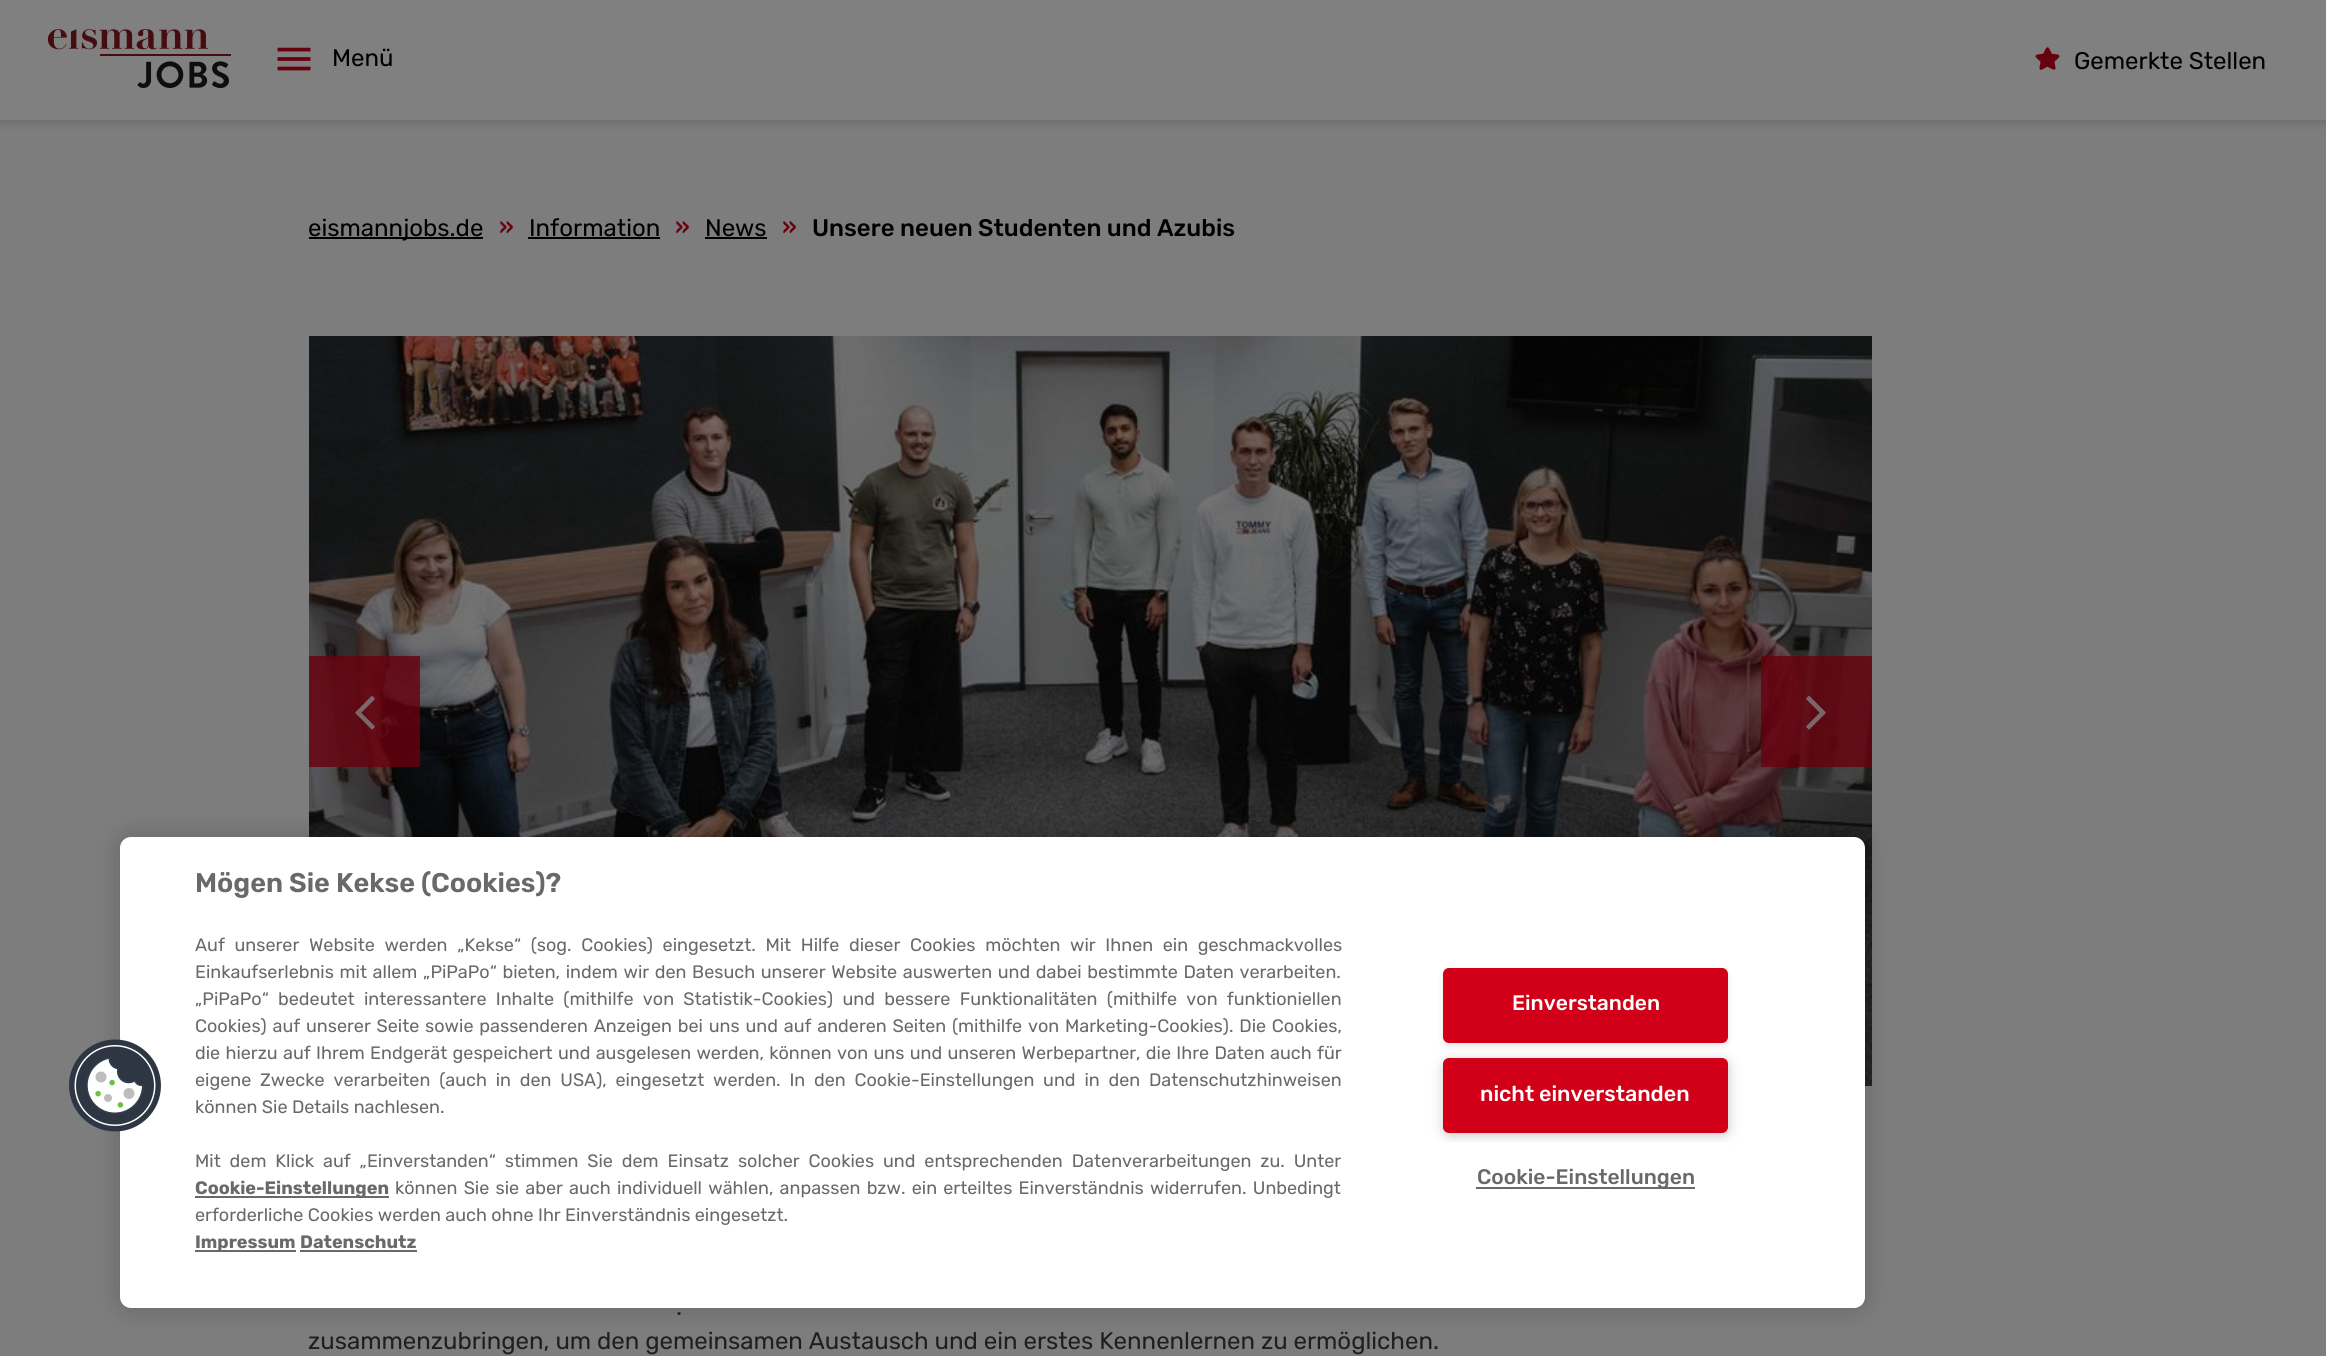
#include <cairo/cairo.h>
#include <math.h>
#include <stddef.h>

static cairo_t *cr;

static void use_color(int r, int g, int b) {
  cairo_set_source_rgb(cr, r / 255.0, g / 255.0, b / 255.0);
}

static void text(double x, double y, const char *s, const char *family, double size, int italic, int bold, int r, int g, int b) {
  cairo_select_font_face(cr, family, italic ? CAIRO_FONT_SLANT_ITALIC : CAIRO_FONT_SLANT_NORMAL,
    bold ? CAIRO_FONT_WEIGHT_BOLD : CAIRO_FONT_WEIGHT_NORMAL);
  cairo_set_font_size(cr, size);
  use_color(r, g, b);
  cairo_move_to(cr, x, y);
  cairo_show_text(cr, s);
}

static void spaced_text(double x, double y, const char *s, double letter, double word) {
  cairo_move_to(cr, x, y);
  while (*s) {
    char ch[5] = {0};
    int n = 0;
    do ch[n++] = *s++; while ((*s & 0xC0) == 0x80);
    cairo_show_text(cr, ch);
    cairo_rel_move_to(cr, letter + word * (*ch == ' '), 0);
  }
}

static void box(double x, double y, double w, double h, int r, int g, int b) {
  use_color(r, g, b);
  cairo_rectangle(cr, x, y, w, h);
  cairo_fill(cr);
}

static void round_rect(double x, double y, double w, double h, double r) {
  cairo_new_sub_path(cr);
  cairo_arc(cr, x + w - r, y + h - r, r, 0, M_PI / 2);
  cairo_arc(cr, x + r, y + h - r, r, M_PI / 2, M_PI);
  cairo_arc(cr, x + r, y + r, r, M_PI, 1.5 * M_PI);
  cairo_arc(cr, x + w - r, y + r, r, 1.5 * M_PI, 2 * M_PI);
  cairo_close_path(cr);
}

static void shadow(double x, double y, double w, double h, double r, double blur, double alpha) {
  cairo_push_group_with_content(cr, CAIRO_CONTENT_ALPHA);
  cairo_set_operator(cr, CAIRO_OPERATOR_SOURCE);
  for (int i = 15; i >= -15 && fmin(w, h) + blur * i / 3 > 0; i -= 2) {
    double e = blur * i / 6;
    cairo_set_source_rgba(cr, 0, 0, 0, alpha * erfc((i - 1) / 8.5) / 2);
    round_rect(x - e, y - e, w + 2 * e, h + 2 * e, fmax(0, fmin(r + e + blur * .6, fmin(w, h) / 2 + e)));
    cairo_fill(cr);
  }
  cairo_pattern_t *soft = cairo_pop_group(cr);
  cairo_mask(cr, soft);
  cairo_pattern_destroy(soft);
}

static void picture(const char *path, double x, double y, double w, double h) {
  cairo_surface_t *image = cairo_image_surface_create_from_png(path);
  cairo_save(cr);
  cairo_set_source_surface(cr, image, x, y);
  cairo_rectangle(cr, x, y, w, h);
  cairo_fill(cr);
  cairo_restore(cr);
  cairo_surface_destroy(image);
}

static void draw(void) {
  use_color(125, 125, 125);
  cairo_paint(cr);
  use_color(0, 0, 0);
  shadow(0, 3, 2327, 120, 0, 5, 0.15);
  box(0, 0, 2326, 120, 128, 128, 128);
  picture("img_01.png", 47, 29, 184, 59);
  picture("img_02.png", 277, 47, 34, 24);
  picture("img_03.png", 2035, 47, 25, 23);
  box(309, 237, 174, 2, 0, 0, 0);
  box(528, 237, 132, 2, 0, 0, 0);
  box(705, 237, 62, 2, 0, 0, 0);
  picture("img_04.png", 309, 336, 1563, 750);
  cairo_set_source_rgba(cr, 0.412, 0.004, 0.055, 0.8);
  cairo_rectangle(cr, 309, 656, 111, 111);
  cairo_fill(cr);
  picture("img_05.png", 355, 696, 20, 34);
  cairo_rectangle(cr, 1761, 656, 111, 111);
  cairo_fill(cr);
  picture("img_06.png", 1806, 696, 20, 34);
  use_color(0, 0, 0);
  shadow(120, 837, 1745, 471, 11, 13.5, 0.2);
  use_color(255, 255, 255);
  round_rect(120, 837, 1745, 471, 11);
  cairo_fill(cr);
  picture("img_07.png", 69, 1039, 92, 93);
  box(195, 1196, 194, 2, 105, 105, 105);
  box(195, 1250, 101, 2, 105, 105, 105);
  box(300, 1250, 117, 2, 105, 105, 105);
  use_color(0, 0, 0);
  shadow(1443, 971, 285, 75, 6, 3, 0.1);
  use_color(209, 0, 24);
  round_rect(1444, 969, 283, 73, 5);
  cairo_fill_preserve(cr);
  cairo_stroke(cr);
  use_color(153, 153, 153);
  shadow(1448, 1065, 276, 66, 1.5, 7.5, 1);
  use_color(209, 0, 24);
  round_rect(1444, 1059, 283, 73, 5);
  cairo_fill_preserve(cr);
  cairo_stroke(cr);
  use_color(255, 255, 255);
  round_rect(1443, 1142, 285, 75, 6);
  cairo_fill(cr);
  box(1476, 1187, 219, 2, 105, 105, 105);
  text(332, 66, "Menü", "Rubik", 24, 0, 0, 0, 0, 0);
  text(2074, 69, "Gemerkte Stellen", "Rubik", 24, 0, 0, 0, 0, 0);
  text(308, 236, "eismannjobs.de", "Rubik", 24, 0, 0, 0, 0, 0);
  text(499, 235, "»", "Rubik Medium", 24, 0, 0, 105, 1, 14);
  text(529, 236, "Information", "Rubik", 24, 0, 0, 0, 0, 0);
  text(675, 235, "»", "Rubik Medium", 24, 0, 0, 105, 1, 14);
  text(705, 236, "News", "Rubik", 24, 0, 0, 0, 0, 0);
  text(782, 235, "»", "Rubik Medium", 24, 0, 0, 105, 1, 14);
  text(812, 236, "Unsere neuen Studenten und Azubis", "Rubik Medium", 24, 0, 0, 0, 0, 0);
  text(676, 1315, ".", "Rubik", 24, 0, 0, 31, 31, 31);
  text(308, 1349, "zusammenzubringen, um den gemeinsamen Austausch und ein erstes Kennenlernen zu ermöglichen.", "Rubik", 24, 0, 0, 31, 31, 31);
  text(195, 892, "Mögen Sie Kekse (Cookies)?", "Rubik SemiBold", 27, 0, 0, 105, 105, 105);
  cairo_select_font_face(cr, "Rubik", CAIRO_FONT_SLANT_NORMAL, CAIRO_FONT_WEIGHT_NORMAL);
  cairo_set_font_size(cr, 18);
  spaced_text(195, 951, "Auf unserer Website werden „Kekse“ (sog. Cookies) eingesetzt. Mit Hilfe dieser Cookies möchten wir Ihnen ein geschmackvolles", 0, 5.25);
  spaced_text(195, 978, "Einkaufserlebnis mit allem „PiPaPo“ bieten, indem wir den Besuch unserer Website auswerten und dabei bestimmte Daten verarbeiten.", 0, 1.25);
  spaced_text(195, 1005, "„PiPaPo“ bedeutet interessantere Inhalte (mithilfe von Statistik-Cookies) und bessere Funktionalitäten (mithilfe von funktioniellen", 0, 4.9);
  spaced_text(195, 1032, "Cookies) auf unserer Seite sowie passenderen Anzeigen bei uns und auf anderen Seiten (mithilfe von Marketing-Cookies). Die Cookies,", 0, 1.4);
  spaced_text(195, 1059, "die hierzu auf Ihrem Endgerät gespeichert und ausgelesen werden, können von uns und unseren Werbepartner, die Ihre Daten auch für", 0, 0.9);
  spaced_text(195, 1086, "eigene Zwecke verarbeiten (auch in den USA), eingesetzt werden. In den Cookie-Einstellungen und in den Datenschutzhinweisen", 0, 4.4);
  text(195, 1113, "können Sie Details nachlesen.", "Rubik", 18, 0, 0, 105, 105, 105);
  spaced_text(195, 1167, "Mit dem Klick auf „Einverstanden“ stimmen Sie dem Einsatz solcher Cookies und entsprechenden Datenverarbeitungen zu. Unter", 0, 4.5);
  text(195, 1194, "Cookie-Einstellungen", "Rubik", 18, 0, 1, 105, 105, 105);
  cairo_select_font_face(cr, "Rubik", CAIRO_FONT_SLANT_NORMAL, CAIRO_FONT_WEIGHT_NORMAL);
  spaced_text(395, 1194, "können Sie sie aber auch individuell wählen, anpassen bzw. ein erteiltes Einverständnis widerrufen. Unbedingt", 0, 1.8);
  text(195, 1221, "erforderliche Cookies werden auch ohne Ihr Einverständnis eingesetzt.", "Rubik", 18, 0, 0, 105, 105, 105);
  text(195, 1248, "Impressum", "Rubik", 18, 0, 1, 105, 105, 105);
  text(300, 1248, "Datenschutz", "Rubik", 18, 0, 1, 105, 105, 105);
  text(1512, 1010, "Einverstanden", "Rubik Medium", 21, 0, 0, 255, 255, 255);
  text(1480, 1101, "nicht einverstanden", "Rubik Medium", 21.5, 0, 0, 255, 255, 255);
  text(1477, 1184, "Cookie-Einstellungen", "Rubik Medium", 21, 0, 0, 105, 105, 105);
}

int main(void) {
  cairo_surface_t *surface = cairo_image_surface_create(CAIRO_FORMAT_RGB24, 2326, 1356);
  cr = cairo_create(surface);
  cairo_font_options_t *options = cairo_font_options_create();
  cairo_font_options_set_hint_metrics(options, CAIRO_HINT_METRICS_OFF);
  cairo_font_options_set_hint_style(options, CAIRO_HINT_STYLE_NONE);
  cairo_set_font_options(cr, options);
  cairo_set_miter_limit(cr, 4);
  draw();
  cairo_surface_write_to_png(surface, "out.png");
  cairo_font_options_destroy(options);
  cairo_destroy(cr);
  cairo_surface_destroy(surface);
  return 0;
}
